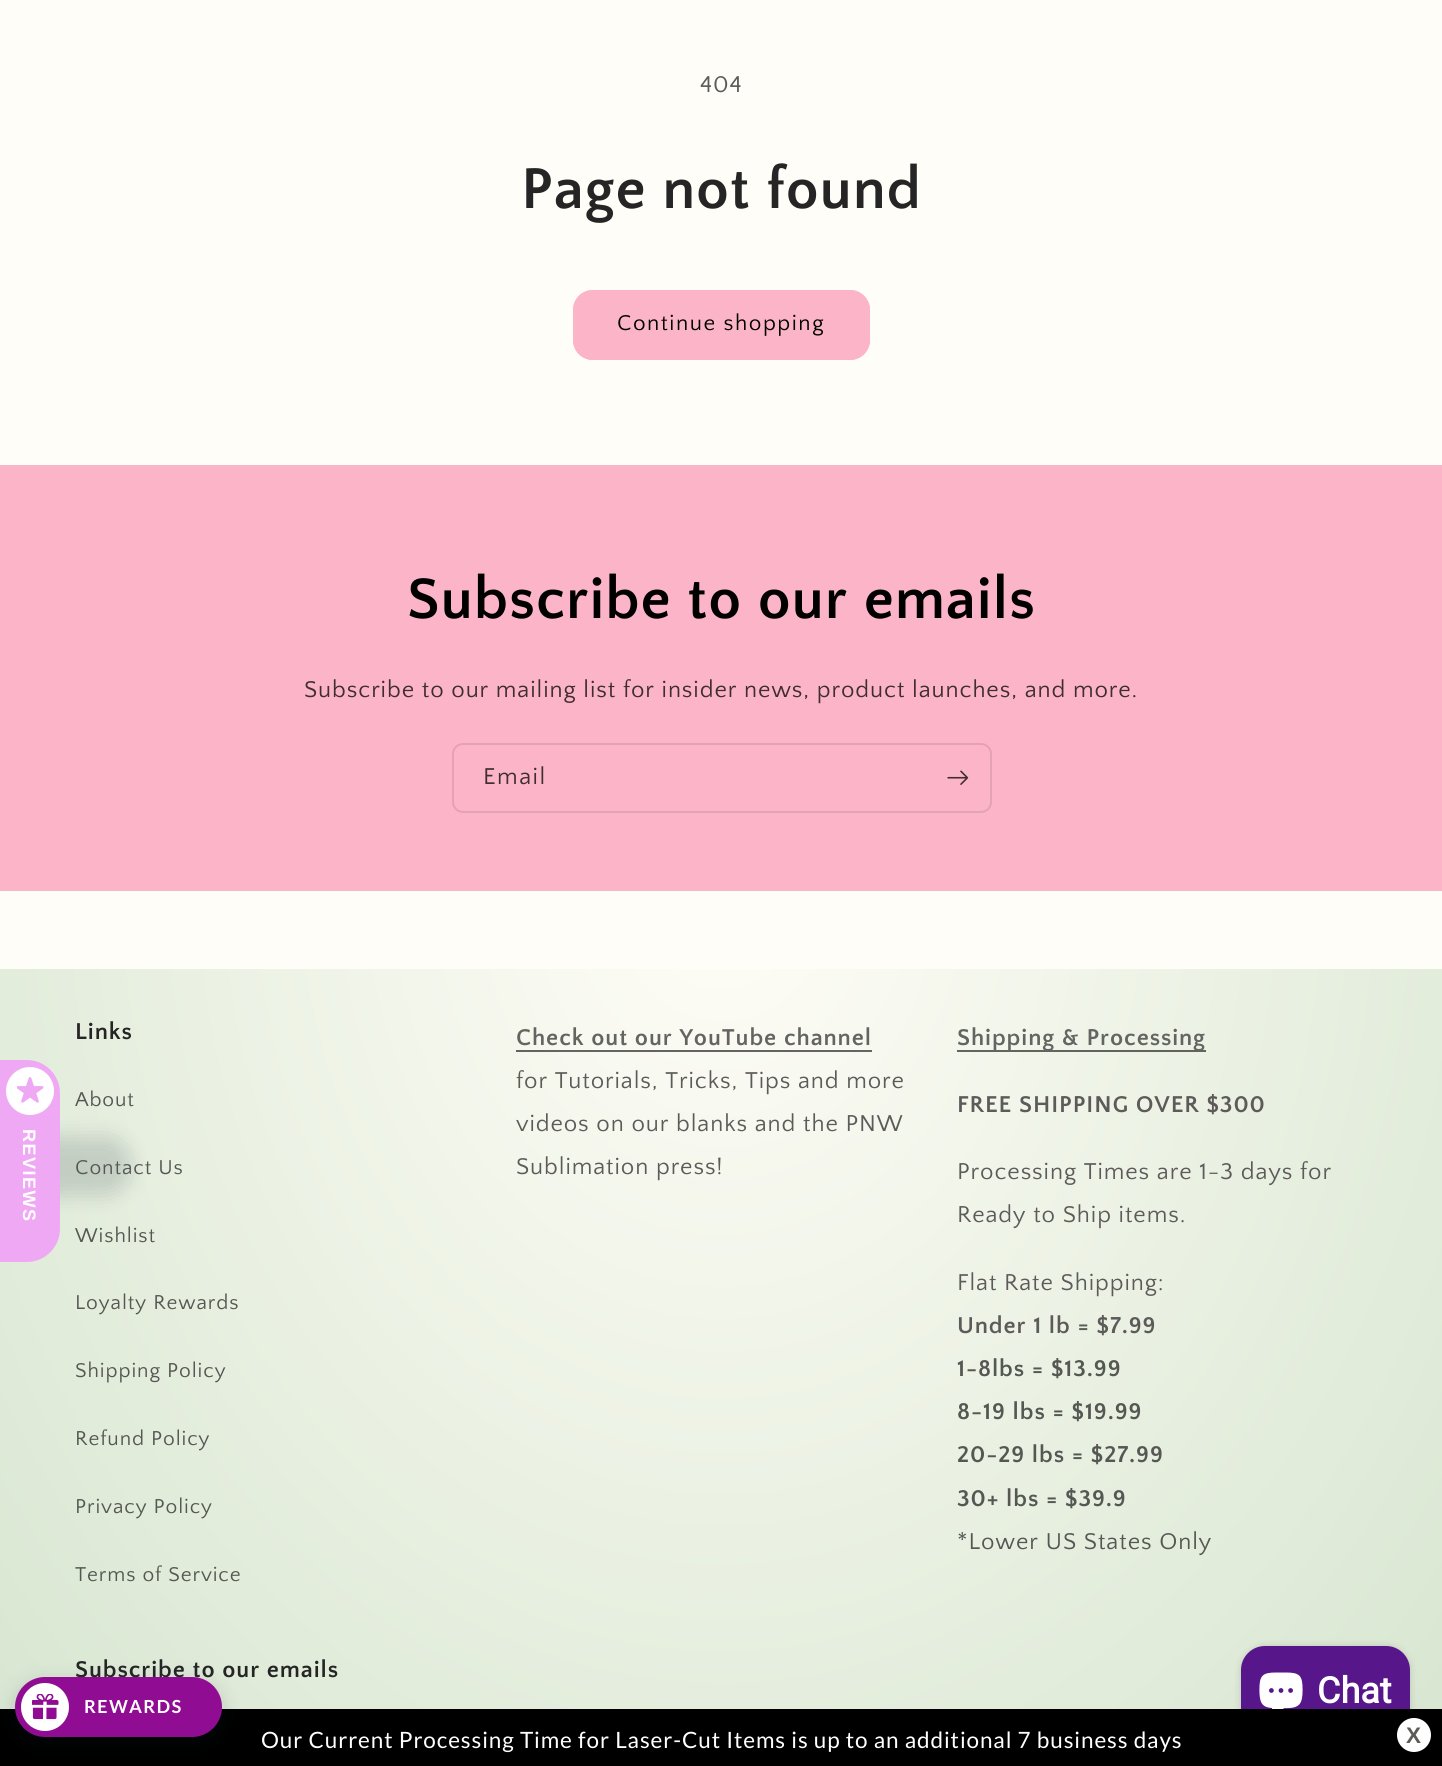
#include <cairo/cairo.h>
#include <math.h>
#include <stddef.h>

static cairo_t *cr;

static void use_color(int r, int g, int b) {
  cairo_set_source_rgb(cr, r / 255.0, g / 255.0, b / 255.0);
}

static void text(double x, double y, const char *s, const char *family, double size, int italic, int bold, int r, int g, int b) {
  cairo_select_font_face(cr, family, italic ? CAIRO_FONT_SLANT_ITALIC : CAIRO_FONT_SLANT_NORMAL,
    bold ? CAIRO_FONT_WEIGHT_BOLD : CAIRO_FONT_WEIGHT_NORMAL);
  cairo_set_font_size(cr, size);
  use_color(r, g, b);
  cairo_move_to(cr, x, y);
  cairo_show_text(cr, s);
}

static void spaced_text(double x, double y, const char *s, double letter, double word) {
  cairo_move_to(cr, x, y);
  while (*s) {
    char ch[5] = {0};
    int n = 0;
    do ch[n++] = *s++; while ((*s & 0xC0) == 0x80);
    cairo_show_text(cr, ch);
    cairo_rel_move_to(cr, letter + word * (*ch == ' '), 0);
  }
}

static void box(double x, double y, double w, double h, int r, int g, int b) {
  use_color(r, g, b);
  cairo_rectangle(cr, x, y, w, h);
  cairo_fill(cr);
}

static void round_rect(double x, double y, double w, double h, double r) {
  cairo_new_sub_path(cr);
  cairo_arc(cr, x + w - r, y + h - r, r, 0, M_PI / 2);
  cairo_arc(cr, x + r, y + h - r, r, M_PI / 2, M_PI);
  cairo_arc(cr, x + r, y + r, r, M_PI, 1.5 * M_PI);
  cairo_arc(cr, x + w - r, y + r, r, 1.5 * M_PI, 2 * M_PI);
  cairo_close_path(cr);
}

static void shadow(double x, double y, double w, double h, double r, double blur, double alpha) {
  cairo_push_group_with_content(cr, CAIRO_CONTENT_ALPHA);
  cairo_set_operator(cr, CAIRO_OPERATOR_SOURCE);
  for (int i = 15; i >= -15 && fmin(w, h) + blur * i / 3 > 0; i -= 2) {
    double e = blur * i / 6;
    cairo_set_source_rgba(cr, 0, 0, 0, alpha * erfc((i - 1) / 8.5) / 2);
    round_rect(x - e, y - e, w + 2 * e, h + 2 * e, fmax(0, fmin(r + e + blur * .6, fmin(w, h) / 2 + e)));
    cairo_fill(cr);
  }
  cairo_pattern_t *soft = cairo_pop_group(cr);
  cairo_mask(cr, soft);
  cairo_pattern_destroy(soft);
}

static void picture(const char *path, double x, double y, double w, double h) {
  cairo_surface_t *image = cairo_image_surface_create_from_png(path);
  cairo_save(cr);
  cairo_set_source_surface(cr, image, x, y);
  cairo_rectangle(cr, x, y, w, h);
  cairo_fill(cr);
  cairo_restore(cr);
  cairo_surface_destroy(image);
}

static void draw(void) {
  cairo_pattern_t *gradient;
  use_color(255, 253, 247);
  cairo_paint(cr);
  use_color(252, 181, 200);
  round_rect(573, 290, 297, 70, 20);
  cairo_fill(cr);
  round_rect(574, 291, 295, 68, 19);
  cairo_stroke(cr);
  box(0, 465, 1442, 426, 252, 181, 200);
  round_rect(453, 744, 538, 68, 10);
  use_color(227, 163, 180);
  cairo_stroke(cr);
  picture("img_01.png", 947, 770, 22, 15);
  gradient = cairo_pattern_create_radial(0, 0, 0, 0, 0, 1);
  cairo_pattern_set_matrix(gradient, &(cairo_matrix_t){1.0 / 1020, 0, 0, 1.0 / 1249, -1.0 * 722 / 1020, -1.0 * 884 / 1249});
  cairo_pattern_add_color_stop_rgba(gradient, 0, 1, 0.992, 0.969, 1);
  cairo_pattern_add_color_stop_rgba(gradient, 1, 0.843, 0.902, 0.816, 1);
  cairo_set_source(cr, gradient);
  cairo_pattern_destroy(gradient);
  cairo_rectangle(cr, 0, 969, 1442, 740);
  cairo_fill(cr);
  use_color(17, 34, 51);
  shadow(-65, 1136, 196, 60, 33, 10.5, 0.16);
  use_color(239, 169, 244);
  cairo_new_path(cr);
  cairo_move_to(cr, 60, 1093);
  cairo_line_to(cr, 60, 1229);
  cairo_curve_to(cr, 60, 1247, 45, 1262, 27, 1262);
  cairo_line_to(cr, 0, 1262);
  cairo_line_to(cr, 0, 1060);
  cairo_line_to(cr, 27, 1060);
  cairo_curve_to(cr, 45, 1060, 60, 1075, 60, 1093);
  cairo_close_path(cr);
  cairo_fill(cr);
  use_color(255, 255, 255);
  cairo_arc(cr, 30, 1091, 24, 0, 2 * M_PI);
  cairo_fill(cr);
  picture("img_02.png", 17, 1077, 27, 26);
  gradient = cairo_pattern_create_radial(0, 0, 0, 0, 0, 1);
  cairo_pattern_set_matrix(gradient, &(cairo_matrix_t){1.0 / 1020, 0, 0, 1.0 / 1249, -1.0 * 722 / 1020, -1.0 * 884 / 1249});
  cairo_pattern_add_color_stop_rgba(gradient, 0, 0.4, 0.4, 0.392, 1);
  cairo_pattern_add_color_stop_rgba(gradient, 1, 0.353, 0.373, 0.345, 1);
  cairo_set_source(cr, gradient);
  cairo_pattern_destroy(gradient);
  cairo_rectangle(cr, 957, 1050, 249, 2);
  cairo_fill(cr);
  cairo_rectangle(cr, 516, 1050, 356, 2);
  cairo_fill(cr);
  use_color(0, 0, 0);
  shadow(1241, 1646, 169, 90, 24, 4, 0.15);
  use_color(88, 22, 139);
  round_rect(1241, 1646, 169, 90, 24);
  cairo_fill(cr);
  picture("img_03.png", 1259, 1672, 44, 37);
  box(0, 1709, 1442, 57, 0, 0, 0);
  use_color(17, 34, 51);
  shadow(15, 1682, 207, 60, 30, 10.5, 0.16);
  use_color(255, 255, 255);
  cairo_arc(cr, 1414, 1735, 17, 0, 2 * M_PI);
  cairo_fill(cr);
  cairo_select_font_face(cr, "Quattrocento Sans", CAIRO_FONT_SLANT_NORMAL, CAIRO_FONT_WEIGHT_NORMAL);
  cairo_set_font_size(cr, 24);
  use_color(92, 91, 90);
  spaced_text(700, 92, "404", 0.9, 0);
  cairo_select_font_face(cr, "Quattrocento Sans", CAIRO_FONT_SLANT_NORMAL, CAIRO_FONT_WEIGHT_BOLD);
  cairo_set_font_size(cr, 60);
  use_color(37, 37, 37);
  spaced_text(521, 208, "Page not found", 0.9, 0);
  cairo_select_font_face(cr, "Quattrocento Sans", CAIRO_FONT_SLANT_NORMAL, CAIRO_FONT_WEIGHT_NORMAL);
  cairo_set_font_size(cr, 22.5);
  use_color(0, 0, 0);
  spaced_text(617, 330, "Continue shopping", 1.5, 0);
  cairo_select_font_face(cr, "Quattrocento Sans", CAIRO_FONT_SLANT_NORMAL, CAIRO_FONT_WEIGHT_BOLD);
  cairo_set_font_size(cr, 60);
  spaced_text(407, 618, "Subscribe to our emails", 0.9, 0);
  cairo_select_font_face(cr, "Quattrocento Sans", CAIRO_FONT_SLANT_NORMAL, CAIRO_FONT_WEIGHT_NORMAL);
  cairo_set_font_size(cr, 24);
  use_color(63, 45, 50);
  spaced_text(304, 697, "Subscribe to our mailing list for insider news, product launches, and more.", 0.9, 0);
  spaced_text(483, 784, "Email", 1.5, 0);
  cairo_select_font_face(cr, "Liberation Sans", CAIRO_FONT_SLANT_NORMAL, CAIRO_FONT_WEIGHT_BOLD);
  cairo_set_font_size(cr, 18);
  use_color(255, 255, 255);
  cairo_save(cr);
  cairo_translate(cr, 23, 1129);
  cairo_rotate(cr, 90 * M_PI / 180);
  spaced_text(0, 0, "REVIEWS", 1.5, 0);
  cairo_restore(cr);
  cairo_select_font_face(cr, "Quattrocento Sans", CAIRO_FONT_SLANT_NORMAL, CAIRO_FONT_WEIGHT_BOLD);
  cairo_set_font_size(cr, 24);
  use_color(37, 37, 37);
  spaced_text(75, 1039, "Links", 0.9, 0);
  cairo_select_font_face(cr, "Quattrocento Sans", CAIRO_FONT_SLANT_NORMAL, CAIRO_FONT_WEIGHT_NORMAL);
  cairo_set_font_size(cr, 21);
  use_color(85, 87, 83);
  spaced_text(75, 1106, "About", 0.9, 0);
  spaced_text(75, 1174, "Contact Us", 0.9, 0);
  spaced_text(75, 1242, "Wishlist", 0.9, 0);
  spaced_text(75, 1309, "Loyalty Rewards", 0.9, 0);
  spaced_text(75, 1377, "Shipping Policy", 0.9, 0);
  spaced_text(75, 1445, "Refund Policy", 0.9, 0);
  spaced_text(75, 1513, "Privacy Policy", 0.9, 0);
  spaced_text(75, 1581, "Terms of Service", 0.9, 0);
  cairo_select_font_face(cr, "Quattrocento Sans", CAIRO_FONT_SLANT_NORMAL, CAIRO_FONT_WEIGHT_BOLD);
  cairo_set_font_size(cr, 24);
  use_color(100, 101, 98);
  spaced_text(516, 1045, "Check out our YouTube channel", 0.9, 0);
  cairo_select_font_face(cr, "Quattrocento Sans", CAIRO_FONT_SLANT_NORMAL, CAIRO_FONT_WEIGHT_NORMAL);
  use_color(92, 91, 90);
  spaced_text(516, 1088, "for Tutorials, Tricks, Tips and more", 0.9, 0);
  spaced_text(516, 1131, "videos on our blanks and the PNW", 0.9, 0);
  spaced_text(516, 1174, "Sublimation press!", 0.9, 0);
  cairo_select_font_face(cr, "Quattrocento Sans", CAIRO_FONT_SLANT_NORMAL, CAIRO_FONT_WEIGHT_BOLD);
  use_color(100, 101, 98);
  spaced_text(957, 1045, "Shipping & Processing", 0.9, 0);
  use_color(92, 91, 90);
  spaced_text(957, 1112, "FREE SHIPPING OVER $300", 0.9, 0);
  cairo_select_font_face(cr, "Quattrocento Sans", CAIRO_FONT_SLANT_NORMAL, CAIRO_FONT_WEIGHT_NORMAL);
  spaced_text(957, 1179, "Processing Times are 1-3 days for", 0.9, 0);
  spaced_text(957, 1222, "Ready to Ship items.", 0.9, 0);
  spaced_text(957, 1290, "Flat Rate Shipping:", 0.9, 0);
  cairo_select_font_face(cr, "Quattrocento Sans", CAIRO_FONT_SLANT_NORMAL, CAIRO_FONT_WEIGHT_BOLD);
  spaced_text(957, 1333, "Under 1 lb = $7.99", 0.9, 0);
  use_color(85, 87, 83);
  spaced_text(957, 1376, "1-8lbs = $13.99", 0.9, 0);
  spaced_text(957, 1419, "8-19 lbs = $19.99", 0.9, 0);
  spaced_text(957, 1462, "20-29 lbs = $27.99", 0.9, 0);
  spaced_text(957, 1506, "30+ lbs = $39.9", 0.9, 0);
  cairo_select_font_face(cr, "Quattrocento Sans", CAIRO_FONT_SLANT_NORMAL, CAIRO_FONT_WEIGHT_NORMAL);
  spaced_text(957, 1549, "*Lower US States Only", 0.9, 0);
  cairo_select_font_face(cr, "Quattrocento Sans", CAIRO_FONT_SLANT_NORMAL, CAIRO_FONT_WEIGHT_BOLD);
  use_color(37, 37, 37);
  spaced_text(75, 1677, "Subscribe to our emails", 0.9, 0);
  text(1317, 1703, "Chat", "Roboto", 36, 0, 1, 255, 255, 255);
  use_color(144, 12, 146);
  round_rect(15, 1677, 207, 60, 30);
  cairo_fill(cr);
  use_color(255, 255, 255);
  cairo_arc(cr, 45, 1707, 24, 0, 2 * M_PI);
  cairo_fill(cr);
  picture("img_04.png", 32, 1694, 27, 26);
  cairo_select_font_face(cr, "Lato", CAIRO_FONT_SLANT_NORMAL, CAIRO_FONT_WEIGHT_BOLD);
  cairo_set_font_size(cr, 18);
  spaced_text(84, 1713, "REWARDS", 1.5, 0);
  cairo_select_font_face(cr, "Lato", CAIRO_FONT_SLANT_NORMAL, CAIRO_FONT_WEIGHT_NORMAL);
  cairo_set_font_size(cr, 22.5);
  spaced_text(261, 1748, "Our Current Processing Time for Laser-Cut Items is up to an additional 7 business days", 0.9, 0);
  cairo_select_font_face(cr, "Liberation Sans", CAIRO_FONT_SLANT_NORMAL, CAIRO_FONT_WEIGHT_BOLD);
  use_color(92, 91, 90);
  spaced_text(1406, 1743, "X", 0.9, 0);
}

int main(void) {
  cairo_surface_t *surface = cairo_image_surface_create(CAIRO_FORMAT_RGB24, 1442, 1766);
  cr = cairo_create(surface);
  cairo_font_options_t *options = cairo_font_options_create();
  cairo_font_options_set_hint_metrics(options, CAIRO_HINT_METRICS_OFF);
  cairo_font_options_set_hint_style(options, CAIRO_HINT_STYLE_NONE);
  cairo_set_font_options(cr, options);
  cairo_set_miter_limit(cr, 4);
  draw();
  cairo_surface_write_to_png(surface, "out.png");
  cairo_font_options_destroy(options);
  cairo_destroy(cr);
  cairo_surface_destroy(surface);
  return 0;
}
